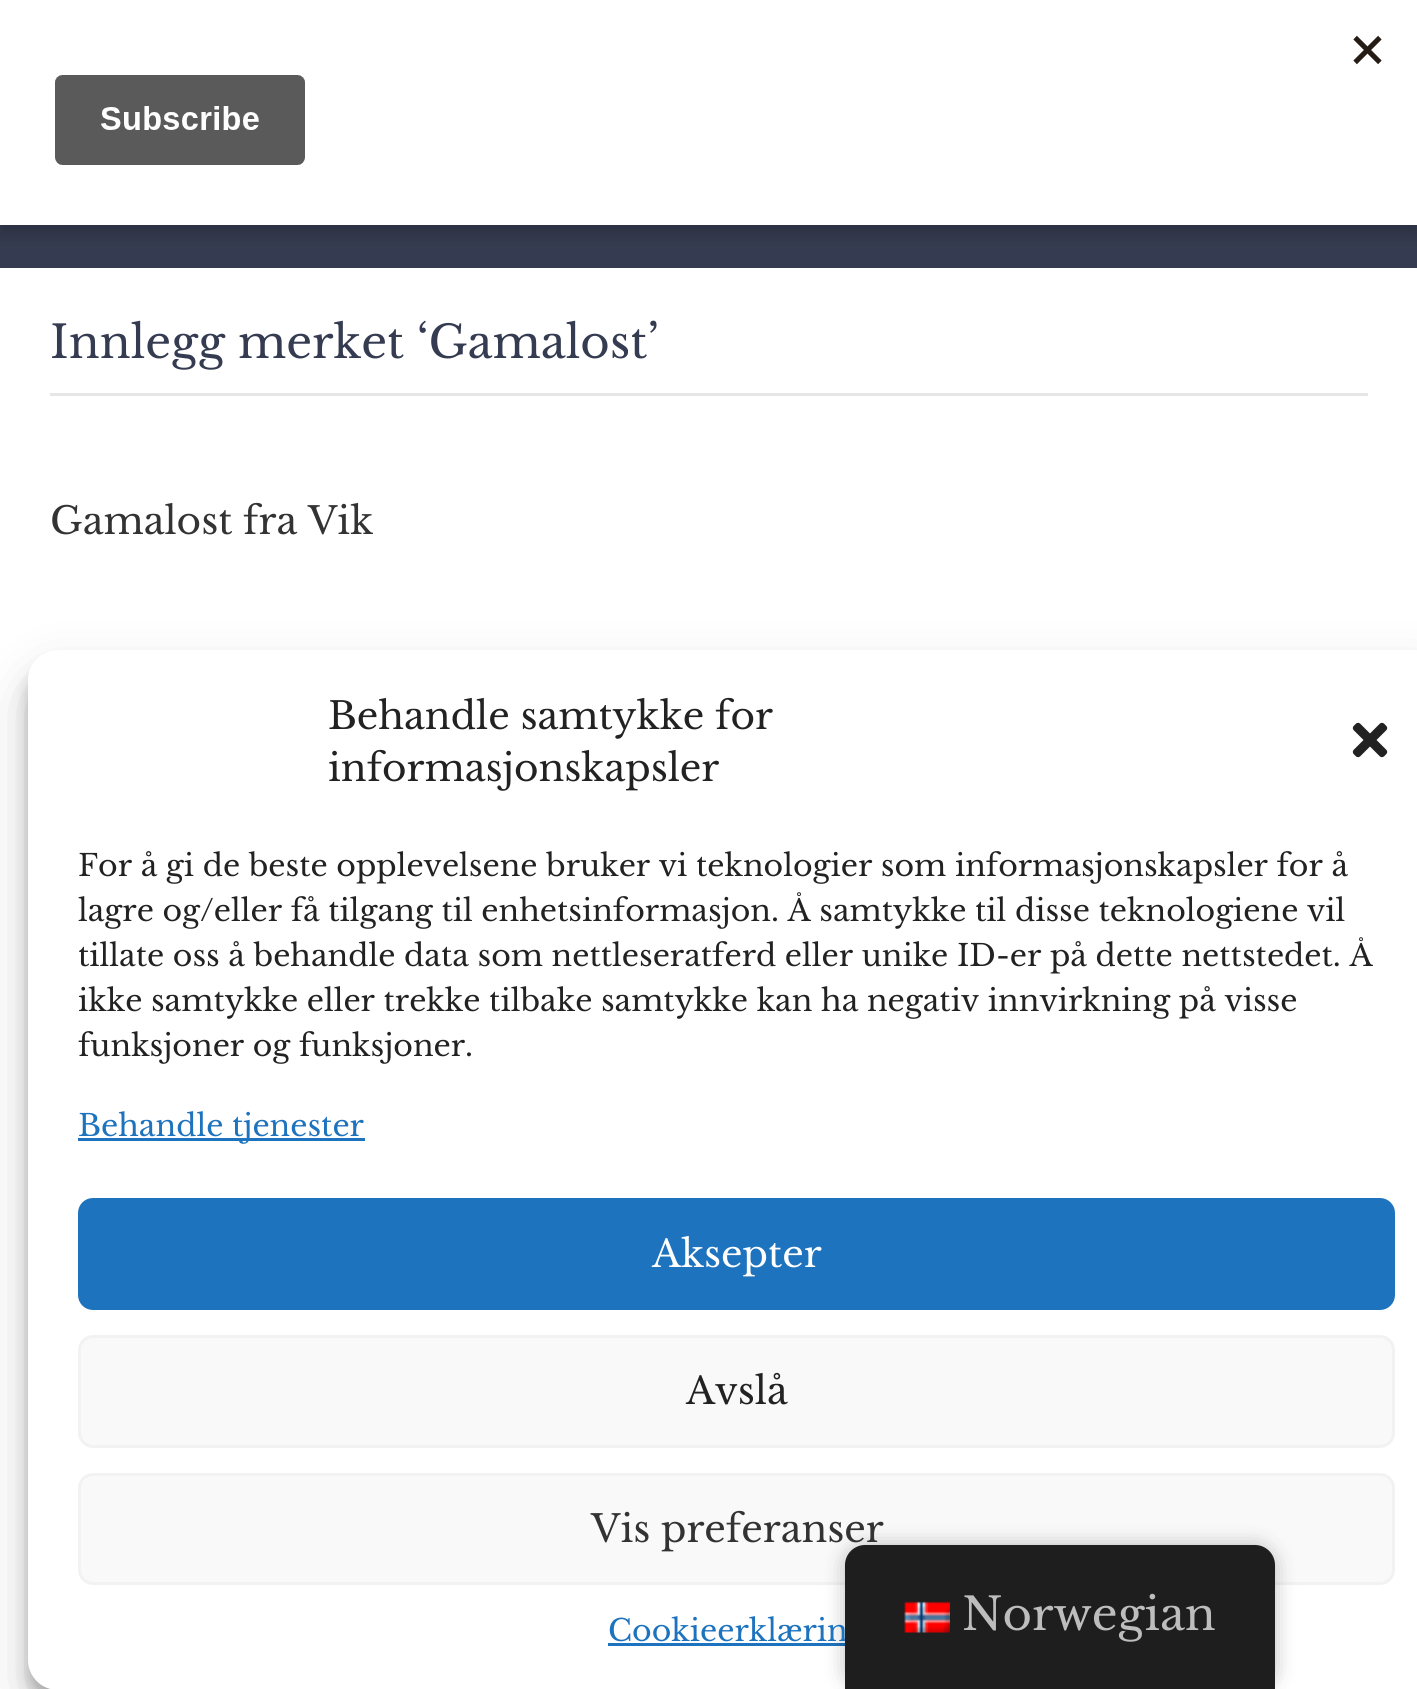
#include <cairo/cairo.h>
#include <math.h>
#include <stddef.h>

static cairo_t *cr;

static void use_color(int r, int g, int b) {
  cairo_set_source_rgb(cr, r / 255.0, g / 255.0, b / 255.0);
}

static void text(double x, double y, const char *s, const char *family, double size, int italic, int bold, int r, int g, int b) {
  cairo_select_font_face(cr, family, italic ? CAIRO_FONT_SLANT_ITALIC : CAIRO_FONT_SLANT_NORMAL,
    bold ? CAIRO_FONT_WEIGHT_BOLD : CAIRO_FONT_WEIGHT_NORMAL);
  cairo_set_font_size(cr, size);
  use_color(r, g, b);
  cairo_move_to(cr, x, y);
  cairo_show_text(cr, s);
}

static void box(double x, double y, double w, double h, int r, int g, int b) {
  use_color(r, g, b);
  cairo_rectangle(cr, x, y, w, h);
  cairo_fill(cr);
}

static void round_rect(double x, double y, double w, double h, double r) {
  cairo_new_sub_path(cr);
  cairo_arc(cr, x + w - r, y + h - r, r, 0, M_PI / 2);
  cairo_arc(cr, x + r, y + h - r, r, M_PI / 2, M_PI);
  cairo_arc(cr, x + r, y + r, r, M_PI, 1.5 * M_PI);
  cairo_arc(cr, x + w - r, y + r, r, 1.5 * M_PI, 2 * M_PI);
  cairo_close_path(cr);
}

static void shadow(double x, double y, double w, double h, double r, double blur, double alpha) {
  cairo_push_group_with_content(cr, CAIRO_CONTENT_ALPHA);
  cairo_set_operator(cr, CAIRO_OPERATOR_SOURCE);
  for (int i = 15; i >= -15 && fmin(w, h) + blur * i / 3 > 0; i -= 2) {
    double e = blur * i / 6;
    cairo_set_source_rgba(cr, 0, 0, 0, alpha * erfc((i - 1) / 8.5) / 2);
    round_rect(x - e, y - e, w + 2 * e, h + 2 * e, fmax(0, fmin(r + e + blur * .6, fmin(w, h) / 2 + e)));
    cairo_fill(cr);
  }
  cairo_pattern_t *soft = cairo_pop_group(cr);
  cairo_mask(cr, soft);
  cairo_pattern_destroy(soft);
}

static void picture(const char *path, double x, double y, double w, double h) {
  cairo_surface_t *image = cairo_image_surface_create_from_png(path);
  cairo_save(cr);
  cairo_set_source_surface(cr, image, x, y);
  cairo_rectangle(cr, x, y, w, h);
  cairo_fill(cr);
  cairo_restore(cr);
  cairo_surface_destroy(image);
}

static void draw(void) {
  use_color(255, 255, 255);
  cairo_paint(cr);
  box(0, 225, 1417, 43, 53, 59, 80);
  use_color(0, 0, 0);
  shadow(0, 8, 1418, 225, 0, 7.5, 0.2);
  box(0, 0, 1417, 225, 255, 255, 255);
  picture("img_01.png", 55, 35, 1327, 130);
  box(50, 393, 1318, 3, 230, 230, 230);
  use_color(0, 0, 0);
  shadow(28, 665, 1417, 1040, 30, 7.5, 0.23);
  shadow(28, 675, 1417, 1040, 30, 25, 0.19);
  use_color(255, 255, 255);
  round_rect(28, 650, 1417, 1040, 30);
  cairo_fill(cr);
  picture("img_02.png", 1352, 722, 36, 36);
  box(78, 1138, 287, 3, 30, 115, 190);
  round_rect(79.5, 1199.5, 1314, 109, 13.5);
  cairo_fill_preserve(cr);
  cairo_set_line_width(cr, 3);
  cairo_stroke(cr);
  use_color(249, 249, 249);
  round_rect(79.5, 1336.5, 1314, 110, 13.5);
  cairo_fill_preserve(cr);
  use_color(242, 242, 242);
  cairo_stroke(cr);
  use_color(249, 249, 249);
  round_rect(79.5, 1474.5, 1314, 109, 13.5);
  cairo_fill_preserve(cr);
  use_color(242, 242, 242);
  cairo_stroke(cr);
  box(608, 1643, 237, 3, 30, 115, 190);
  use_color(0, 0, 0);
  shadow(845, 1545, 430, 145, 20, 10, 0.25);
  text(50, 358, "Innlegg merket ‘Gamalost’", "Libre Baskerville", 45, 0, 0, 53, 59, 80);
  text(50, 534, "Gamalost fra Vik", "Libre Baskerville", 37.5, 0, 0, 51, 51, 51);
  text(328, 729, "Behandle samtykke for", "Libre Baskerville", 37.5, 0, 0, 34, 34, 34);
  text(328, 781, "informasjonskapsler", "Libre Baskerville", 37.5, 0, 0, 34, 34, 34);
  text(78, 876, "For å gi de beste opplevelsene bruker vi teknologier som informasjonskapsler for å", "Libre Baskerville", 30, 0, 0, 34, 34, 34);
  text(78, 921, "lagre og/eller få tilgang til enhetsinformasjon. Å samtykke til disse teknologiene vil", "Libre Baskerville", 30, 0, 0, 34, 34, 34);
  text(78, 966, "tillate oss å behandle data som nettleseratferd eller unike ID-er på dette nettstedet. Å", "Libre Baskerville", 30, 0, 0, 34, 34, 34);
  text(78, 1011, "ikke samtykke eller trekke tilbake samtykke kan ha negativ innvirkning på visse", "Libre Baskerville", 30, 0, 0, 34, 34, 34);
  text(78, 1056, "funksjoner og funksjoner.", "Libre Baskerville", 30, 0, 0, 34, 34, 34);
  text(78, 1136, "Behandle tjenester", "Libre Baskerville", 30, 0, 0, 30, 115, 190);
  text(652, 1267, "Aksepter", "Libre Baskerville", 37.5, 0, 0, 255, 255, 255);
  text(686, 1404, "Avslå", "Libre Baskerville", 37.5, 0, 0, 34, 34, 34);
  text(591, 1542, "Vis preferanser", "Libre Baskerville", 37.5, 0, 0, 51, 51, 51);
  text(608, 1641, "Cookieerklærin", "Libre Baskerville", 30, 0, 0, 30, 115, 190);
  use_color(30, 30, 30);
  cairo_new_path(cr);
  cairo_move_to(cr, 865, 1545);
  cairo_line_to(cr, 1255, 1545);
  cairo_curve_to(cr, 1266, 1545, 1275, 1554, 1275, 1565);
  cairo_line_to(cr, 1275, 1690);
  cairo_line_to(cr, 845, 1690);
  cairo_line_to(cr, 845, 1565);
  cairo_curve_to(cr, 845, 1554, 854, 1545, 865, 1545);
  cairo_close_path(cr);
  cairo_fill(cr);
  picture("img_03.png", 904, 1601, 46, 32);
  text(962, 1630, "Norwegian", "Libre Baskerville", 45, 0, 0, 189, 189, 189);
}

int main(void) {
  cairo_surface_t *surface = cairo_image_surface_create(CAIRO_FORMAT_RGB24, 1417, 1689);
  cr = cairo_create(surface);
  cairo_font_options_t *options = cairo_font_options_create();
  cairo_font_options_set_hint_metrics(options, CAIRO_HINT_METRICS_OFF);
  cairo_font_options_set_hint_style(options, CAIRO_HINT_STYLE_NONE);
  cairo_set_font_options(cr, options);
  cairo_set_miter_limit(cr, 4);
  draw();
  cairo_surface_write_to_png(surface, "out.png");
  cairo_font_options_destroy(options);
  cairo_destroy(cr);
  cairo_surface_destroy(surface);
  return 0;
}
